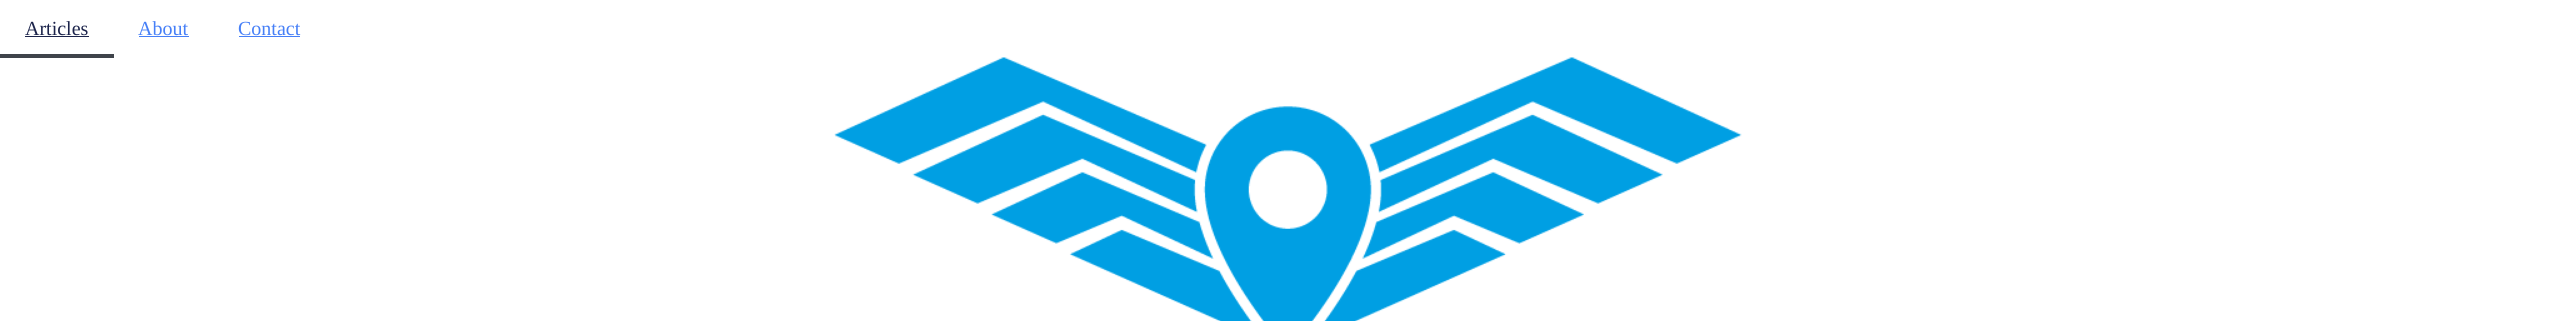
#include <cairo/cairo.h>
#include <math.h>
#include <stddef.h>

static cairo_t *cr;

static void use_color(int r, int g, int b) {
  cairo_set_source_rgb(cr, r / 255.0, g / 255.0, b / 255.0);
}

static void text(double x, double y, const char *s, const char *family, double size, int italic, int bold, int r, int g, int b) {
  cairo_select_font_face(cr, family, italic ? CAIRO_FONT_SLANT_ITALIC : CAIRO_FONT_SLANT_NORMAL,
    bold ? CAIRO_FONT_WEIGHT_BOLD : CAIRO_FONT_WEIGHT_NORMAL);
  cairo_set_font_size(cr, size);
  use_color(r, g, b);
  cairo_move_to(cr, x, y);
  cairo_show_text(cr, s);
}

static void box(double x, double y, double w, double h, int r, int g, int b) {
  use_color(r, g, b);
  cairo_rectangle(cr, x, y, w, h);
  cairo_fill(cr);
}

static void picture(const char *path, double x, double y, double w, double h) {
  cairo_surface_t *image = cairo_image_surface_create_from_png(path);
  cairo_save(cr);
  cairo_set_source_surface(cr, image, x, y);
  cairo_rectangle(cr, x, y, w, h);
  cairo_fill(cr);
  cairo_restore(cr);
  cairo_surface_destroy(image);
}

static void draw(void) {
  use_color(255, 255, 255);
  cairo_paint(cr);
  box(25, 36, 64, 1, 28, 36, 75);
  box(0, 54, 114, 4, 63, 68, 75);
  box(139, 36, 50, 1, 70, 127, 247);
  box(239, 36, 61, 1, 70, 127, 247);
  picture("img_01.png", 834, 57, 908, 264);
  text(25, 35, "Articles", "Liberation Serif", 20, 0, 0, 28, 36, 75);
  text(138, 35, "About", "Liberation Serif", 20, 0, 0, 70, 127, 247);
  text(238, 35, "Contact", "Liberation Serif", 20, 0, 0, 70, 127, 247);
}

int main(void) {
  cairo_surface_t *surface = cairo_image_surface_create(CAIRO_FORMAT_RGB24, 2549, 321);
  cr = cairo_create(surface);
  cairo_font_options_t *options = cairo_font_options_create();
  cairo_font_options_set_hint_metrics(options, CAIRO_HINT_METRICS_OFF);
  cairo_font_options_set_hint_style(options, CAIRO_HINT_STYLE_NONE);
  cairo_set_font_options(cr, options);
  cairo_set_miter_limit(cr, 4);
  draw();
  cairo_surface_write_to_png(surface, "out.png");
  cairo_font_options_destroy(options);
  cairo_destroy(cr);
  cairo_surface_destroy(surface);
  return 0;
}
